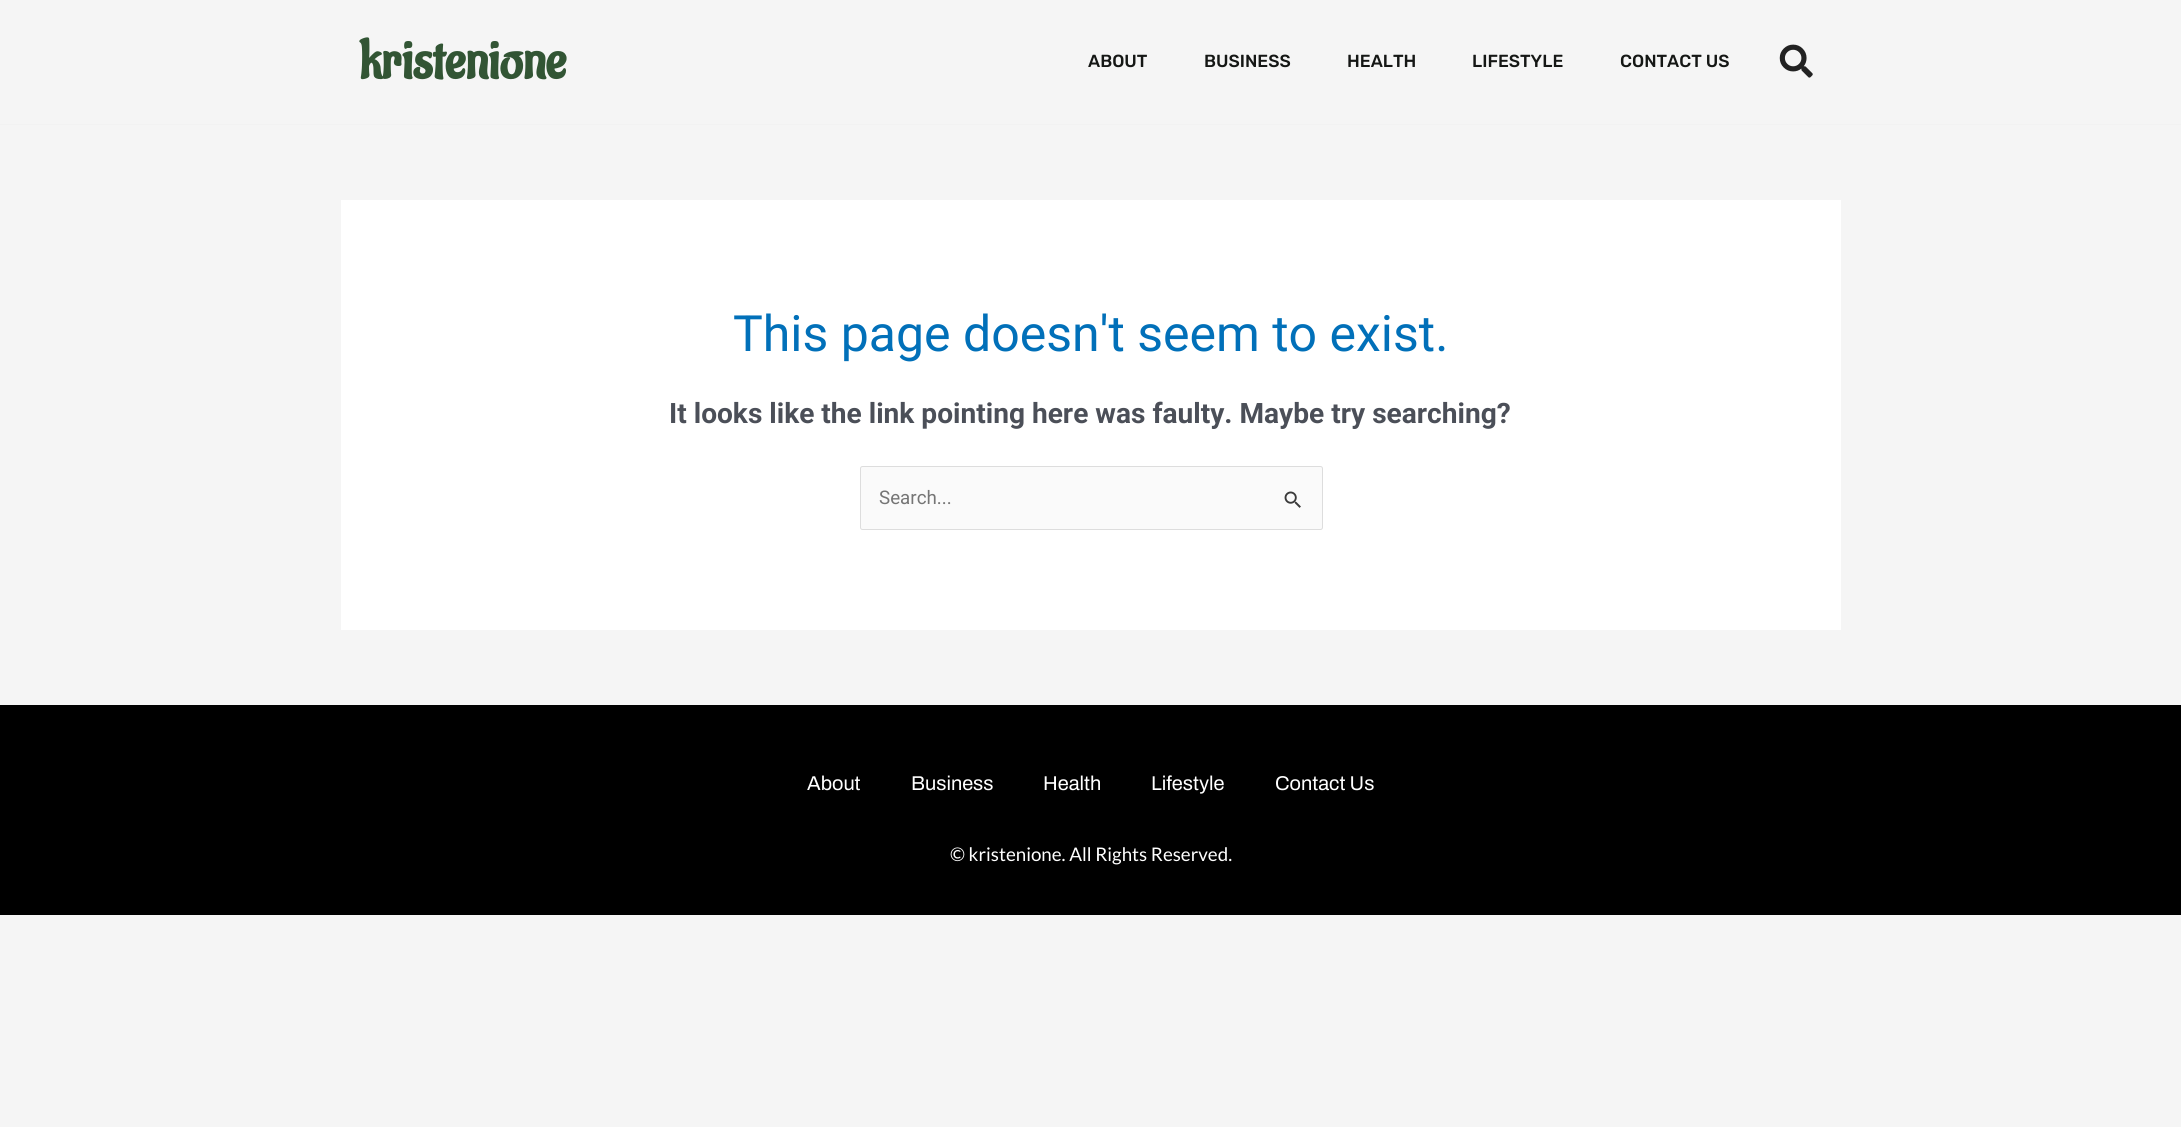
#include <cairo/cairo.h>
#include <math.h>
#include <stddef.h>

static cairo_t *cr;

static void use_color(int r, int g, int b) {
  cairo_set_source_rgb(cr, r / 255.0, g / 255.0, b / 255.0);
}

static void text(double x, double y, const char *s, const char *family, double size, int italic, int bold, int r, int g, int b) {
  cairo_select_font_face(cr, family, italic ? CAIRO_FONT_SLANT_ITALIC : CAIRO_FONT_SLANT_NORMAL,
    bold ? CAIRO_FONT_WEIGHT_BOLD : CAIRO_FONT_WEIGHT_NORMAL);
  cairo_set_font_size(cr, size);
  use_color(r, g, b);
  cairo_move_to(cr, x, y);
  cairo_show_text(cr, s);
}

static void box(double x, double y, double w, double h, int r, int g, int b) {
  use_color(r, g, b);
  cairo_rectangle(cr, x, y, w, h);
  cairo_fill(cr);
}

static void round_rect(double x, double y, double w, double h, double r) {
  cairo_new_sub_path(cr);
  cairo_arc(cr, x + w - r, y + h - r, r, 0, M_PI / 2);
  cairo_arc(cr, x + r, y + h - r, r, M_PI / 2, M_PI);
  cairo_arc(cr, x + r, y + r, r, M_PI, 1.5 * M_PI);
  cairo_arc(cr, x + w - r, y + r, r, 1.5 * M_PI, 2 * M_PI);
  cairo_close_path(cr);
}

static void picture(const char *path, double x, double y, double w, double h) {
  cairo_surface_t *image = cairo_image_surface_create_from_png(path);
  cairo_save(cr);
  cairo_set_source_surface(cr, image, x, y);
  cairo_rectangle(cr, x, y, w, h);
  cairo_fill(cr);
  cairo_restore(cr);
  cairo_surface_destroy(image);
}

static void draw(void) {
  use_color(245, 245, 245);
  cairo_paint(cr);
  box(0, 124, 2181, 1, 242, 242, 242);
  picture("img_01.png", 1779, 44, 34, 34);
  box(341, 200, 1500, 430, 255, 255, 255);
  use_color(250, 250, 250);
  round_rect(860.5, 466.5, 462, 63, 2);
  cairo_fill_preserve(cr);
  use_color(221, 221, 221);
  cairo_set_line_width(cr, 1);
  cairo_stroke(cr);
  picture("img_02.png", 1284, 491, 17, 17);
  box(0, 705, 2181, 210, 0, 0, 0);
  text(359, 78, "kristenione", "Aladin", 56, 0, 1, 50, 85, 52);
  text(1088, 67, "ABOUT", "Rubik Medium", 17.5, 0, 0, 21, 23, 21);
  text(1204, 67, "BUSINESS", "Rubik Medium", 17.5, 0, 0, 21, 23, 21);
  text(1347, 67, "HEALTH", "Rubik Medium", 17.5, 0, 0, 21, 23, 21);
  text(1472, 67, "LIFESTYLE", "Rubik Medium", 17.5, 0, 0, 21, 23, 21);
  text(1620, 67, "CONTACT US", "Rubik Medium", 17.5, 0, 0, 21, 23, 21);
  text(733, 351, "This page doesn't seem to exist.", "Roboto", 50, 0, 0, 1, 112, 185);
  text(669, 423, "It looks like the link pointing here was faulty. Maybe try searching?", "Roboto", 28.1, 0, 1, 75, 79, 88);
  text(879, 504, "Search...", "Roboto", 18.75, 0, 0, 117, 117, 117);
  text(807, 790, "About", "Archivo", 20, 0, 0, 255, 255, 255);
  text(911, 790, "Business", "Archivo", 20, 0, 0, 255, 255, 255);
  text(1043, 790, "Health", "Archivo", 20, 0, 0, 255, 255, 255);
  text(1151, 790, "Lifestyle", "Archivo", 20, 0, 0, 255, 255, 255);
  text(1275, 790, "Contact Us", "Archivo", 20, 0, 0, 255, 255, 255);
  text(950, 861, "© kristenione. All Rights Reserved.", "Lato", 18.75, 0, 0, 255, 255, 255);
}

int main(void) {
  cairo_surface_t *surface = cairo_image_surface_create(CAIRO_FORMAT_RGB24, 2181, 1127);
  cr = cairo_create(surface);
  cairo_font_options_t *options = cairo_font_options_create();
  cairo_font_options_set_hint_metrics(options, CAIRO_HINT_METRICS_OFF);
  cairo_font_options_set_hint_style(options, CAIRO_HINT_STYLE_NONE);
  cairo_set_font_options(cr, options);
  cairo_set_miter_limit(cr, 4);
  draw();
  cairo_surface_write_to_png(surface, "out.png");
  cairo_font_options_destroy(options);
  cairo_destroy(cr);
  cairo_surface_destroy(surface);
  return 0;
}
